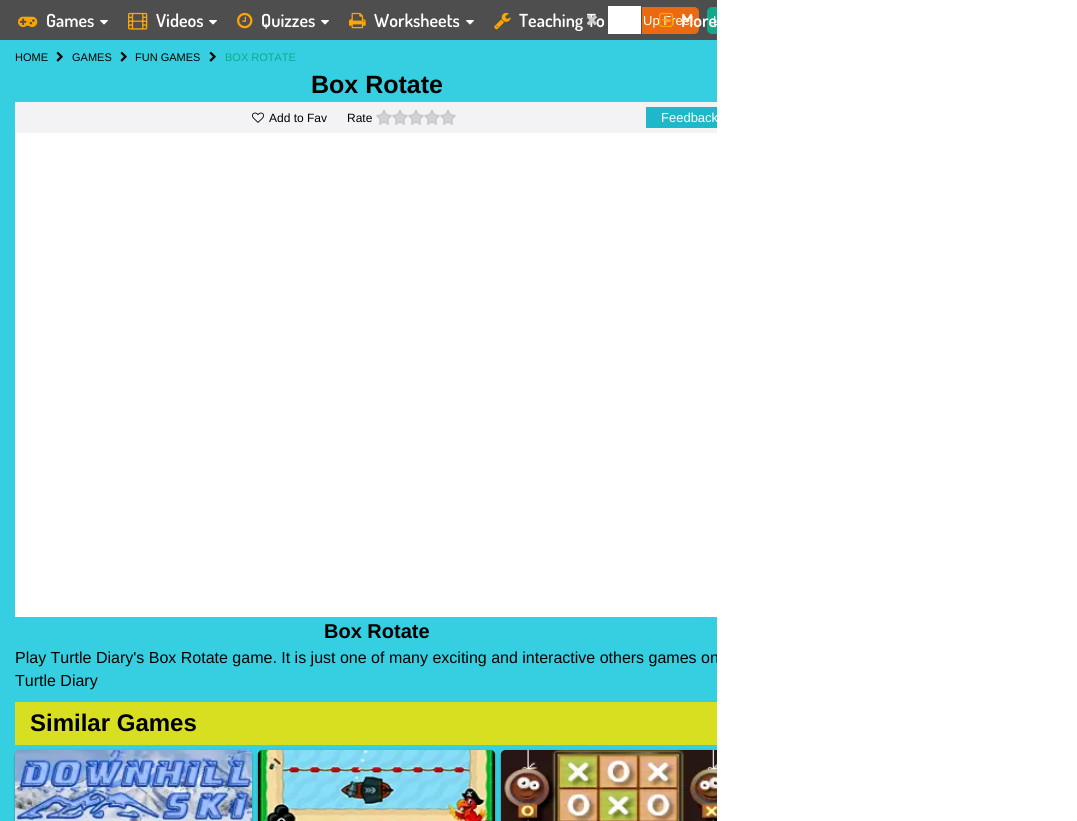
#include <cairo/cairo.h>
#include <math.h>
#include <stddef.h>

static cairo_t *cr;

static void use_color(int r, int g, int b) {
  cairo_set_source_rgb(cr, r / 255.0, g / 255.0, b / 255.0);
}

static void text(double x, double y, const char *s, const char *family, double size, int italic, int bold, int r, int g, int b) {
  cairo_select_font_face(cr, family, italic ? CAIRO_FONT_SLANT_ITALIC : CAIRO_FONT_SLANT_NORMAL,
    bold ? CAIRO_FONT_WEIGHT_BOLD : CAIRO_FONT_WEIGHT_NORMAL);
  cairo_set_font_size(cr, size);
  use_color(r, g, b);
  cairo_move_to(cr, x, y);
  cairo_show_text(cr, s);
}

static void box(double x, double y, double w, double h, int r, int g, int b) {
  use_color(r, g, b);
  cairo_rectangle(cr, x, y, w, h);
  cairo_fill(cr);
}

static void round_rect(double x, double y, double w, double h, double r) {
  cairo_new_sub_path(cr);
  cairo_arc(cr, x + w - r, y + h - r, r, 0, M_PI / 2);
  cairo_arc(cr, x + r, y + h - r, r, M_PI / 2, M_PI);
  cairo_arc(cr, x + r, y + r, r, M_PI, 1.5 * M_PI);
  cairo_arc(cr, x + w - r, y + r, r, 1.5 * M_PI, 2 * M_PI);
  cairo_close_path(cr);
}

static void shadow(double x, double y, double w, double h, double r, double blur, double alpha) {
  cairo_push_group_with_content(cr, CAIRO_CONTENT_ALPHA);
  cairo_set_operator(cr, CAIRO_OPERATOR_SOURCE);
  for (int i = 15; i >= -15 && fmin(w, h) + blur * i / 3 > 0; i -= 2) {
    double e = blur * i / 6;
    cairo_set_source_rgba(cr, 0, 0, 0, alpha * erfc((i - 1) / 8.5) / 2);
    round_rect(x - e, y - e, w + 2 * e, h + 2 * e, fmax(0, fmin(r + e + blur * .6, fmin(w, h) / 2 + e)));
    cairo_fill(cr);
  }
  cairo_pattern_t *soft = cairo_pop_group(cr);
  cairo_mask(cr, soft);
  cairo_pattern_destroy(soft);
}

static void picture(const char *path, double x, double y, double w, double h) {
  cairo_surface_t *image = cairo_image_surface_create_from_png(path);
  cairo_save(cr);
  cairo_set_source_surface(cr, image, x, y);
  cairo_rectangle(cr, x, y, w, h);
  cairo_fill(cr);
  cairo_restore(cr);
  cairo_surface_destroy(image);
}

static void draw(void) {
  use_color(78, 78, 78);
  cairo_paint(cr);
  picture("img_01.png", 18, 16, 20, 11);
  picture("img_02.png", 100, 20, 8, 5);
  picture("img_03.png", 128, 12, 20, 18);
  picture("img_02.png", 209, 20, 8, 5);
  picture("img_04.png", 237, 12, 16, 17);
  picture("img_02.png", 321, 20, 8, 5);
  picture("img_05.png", 349, 12, 17, 17);
  picture("img_02.png", 466, 20, 8, 5);
  picture("img_06.png", 494, 12, 17, 18);
  use_color(235, 105, 15);
  round_rect(607, 7, 92, 27, 5);
  cairo_fill(cr);
  use_color(255, 255, 255);
  cairo_rectangle(cr, 607.5, 5.5, 34, 29);
  cairo_fill_preserve(cr);
  use_color(78, 78, 78);
  cairo_set_line_width(cr, 1);
  cairo_stroke(cr);
  use_color(16, 169, 138);
  round_rect(707, 7, 44, 27, 5);
  cairo_fill(cr);
  box(0, 40, 717, 781, 53, 207, 225);
  picture("img_09.png", 56, 51, 7, 11);
  picture("img_09.png", 120, 51, 7, 11);
  picture("img_09.png", 209, 51, 7, 11);
  box(15, 102, 702, 31, 243, 243, 245);
  picture("img_10.png", 252, 112, 12, 11);
  picture("img_11.png", 376, 109, 80, 16);
  box(646, 107, 71, 21, 31, 184, 201);
  box(15, 133, 702, 484, 255, 255, 255);
  box(15, 702, 702, 43, 216, 223, 32);
  use_color(0, 0, 0);
  shadow(15, 751, 237, 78, 5, 1, 0.24);
  shadow(15, 751, 237, 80, 5, 1.5, 0.12);
  picture("img_12.png", 15, 750, 237, 71);
  picture("img_13.png", 15, 750, 237, 5);
  shadow(258, 751, 237, 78, 5, 1, 0.24);
  shadow(258, 751, 237, 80, 5, 1.5, 0.12);
  picture("img_14.png", 258, 750, 237, 71);
  picture("img_15.png", 258, 750, 237, 5);
  shadow(501, 751, 237, 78, 5, 1, 0.24);
  shadow(501, 751, 237, 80, 5, 1.5, 0.12);
  picture("img_16.png", 501, 750, 216, 71);
  picture("img_17.png", 501, 750, 216, 5);
  text(46, 27, "Games", "Dosis SemiBold", 18, 0, 0, 255, 255, 255);
  text(156, 27, "Videos", "Dosis SemiBold", 18, 0, 0, 255, 255, 255);
  text(261, 27, "Quizzes", "Dosis SemiBold", 18, 0, 0, 255, 255, 255);
  text(374, 27, "Worksheets", "Dosis SemiBold", 18, 0, 0, 255, 255, 255);
  text(519, 27, "Teaching To", "Dosis SemiBold", 18, 0, 0, 255, 255, 255);
  picture("img_08.png", 587, 15, 10, 11);
  text(643, 25, "Up Free!", "Liberation Sans", 13, 0, 0, 255, 255, 255);
  picture("img_07.png", 659, 12, 15, 15);
  text(713, 25, "L", "Liberation Sans", 13, 0, 0, 255, 255, 255);
  text(681, 27, "More", "Dosis SemiBold", 18, 0, 0, 255, 255, 255);
  text(15, 61, "HOME", "Liberation Sans", 11, 0, 0, 0, 0, 0);
  text(72, 61, "GAMES", "Liberation Sans", 11, 0, 0, 0, 0, 0);
  text(135, 61, "FUN GAMES", "Liberation Sans", 11, 0, 0, 0, 0, 0);
  text(225, 61, "BOX ROTATE", "Liberation Sans", 11, 0, 0, 16, 169, 138);
  text(311, 93, "Box Rotate", "Liberation Sans", 25, 0, 1, 0, 0, 0);
  text(269, 122, "Add to Fav", "Liberation Sans", 12, 0, 0, 0, 0, 0);
  text(347, 122, "Rate", "Liberation Sans", 12, 0, 0, 0, 0, 0);
  text(661, 122, "Feedback", "Liberation Sans", 13, 0, 0, 255, 255, 255);
  text(324, 638, "Box Rotate", "Liberation Sans", 20, 0, 1, 0, 0, 0);
  text(15, 663, "Play Turtle Diary's Box Rotate game. It is just one of many exciting and interactive others games on", "Liberation Sans", 16, 0, 0, 0, 0, 0);
  box(717, 0, 360, 821, 255, 255, 255);
  text(15, 686, "Turtle Diary", "Liberation Sans", 16, 0, 0, 0, 0, 0);
  text(30, 731, "Similar Games", "Liberation Sans", 24, 0, 1, 0, 0, 0);
}

int main(void) {
  cairo_surface_t *surface = cairo_image_surface_create(CAIRO_FORMAT_RGB24, 1077, 821);
  cr = cairo_create(surface);
  cairo_font_options_t *options = cairo_font_options_create();
  cairo_font_options_set_hint_metrics(options, CAIRO_HINT_METRICS_OFF);
  cairo_font_options_set_hint_style(options, CAIRO_HINT_STYLE_NONE);
  cairo_set_font_options(cr, options);
  cairo_set_miter_limit(cr, 4);
  draw();
  cairo_surface_write_to_png(surface, "out.png");
  cairo_font_options_destroy(options);
  cairo_destroy(cr);
  cairo_surface_destroy(surface);
  return 0;
}
